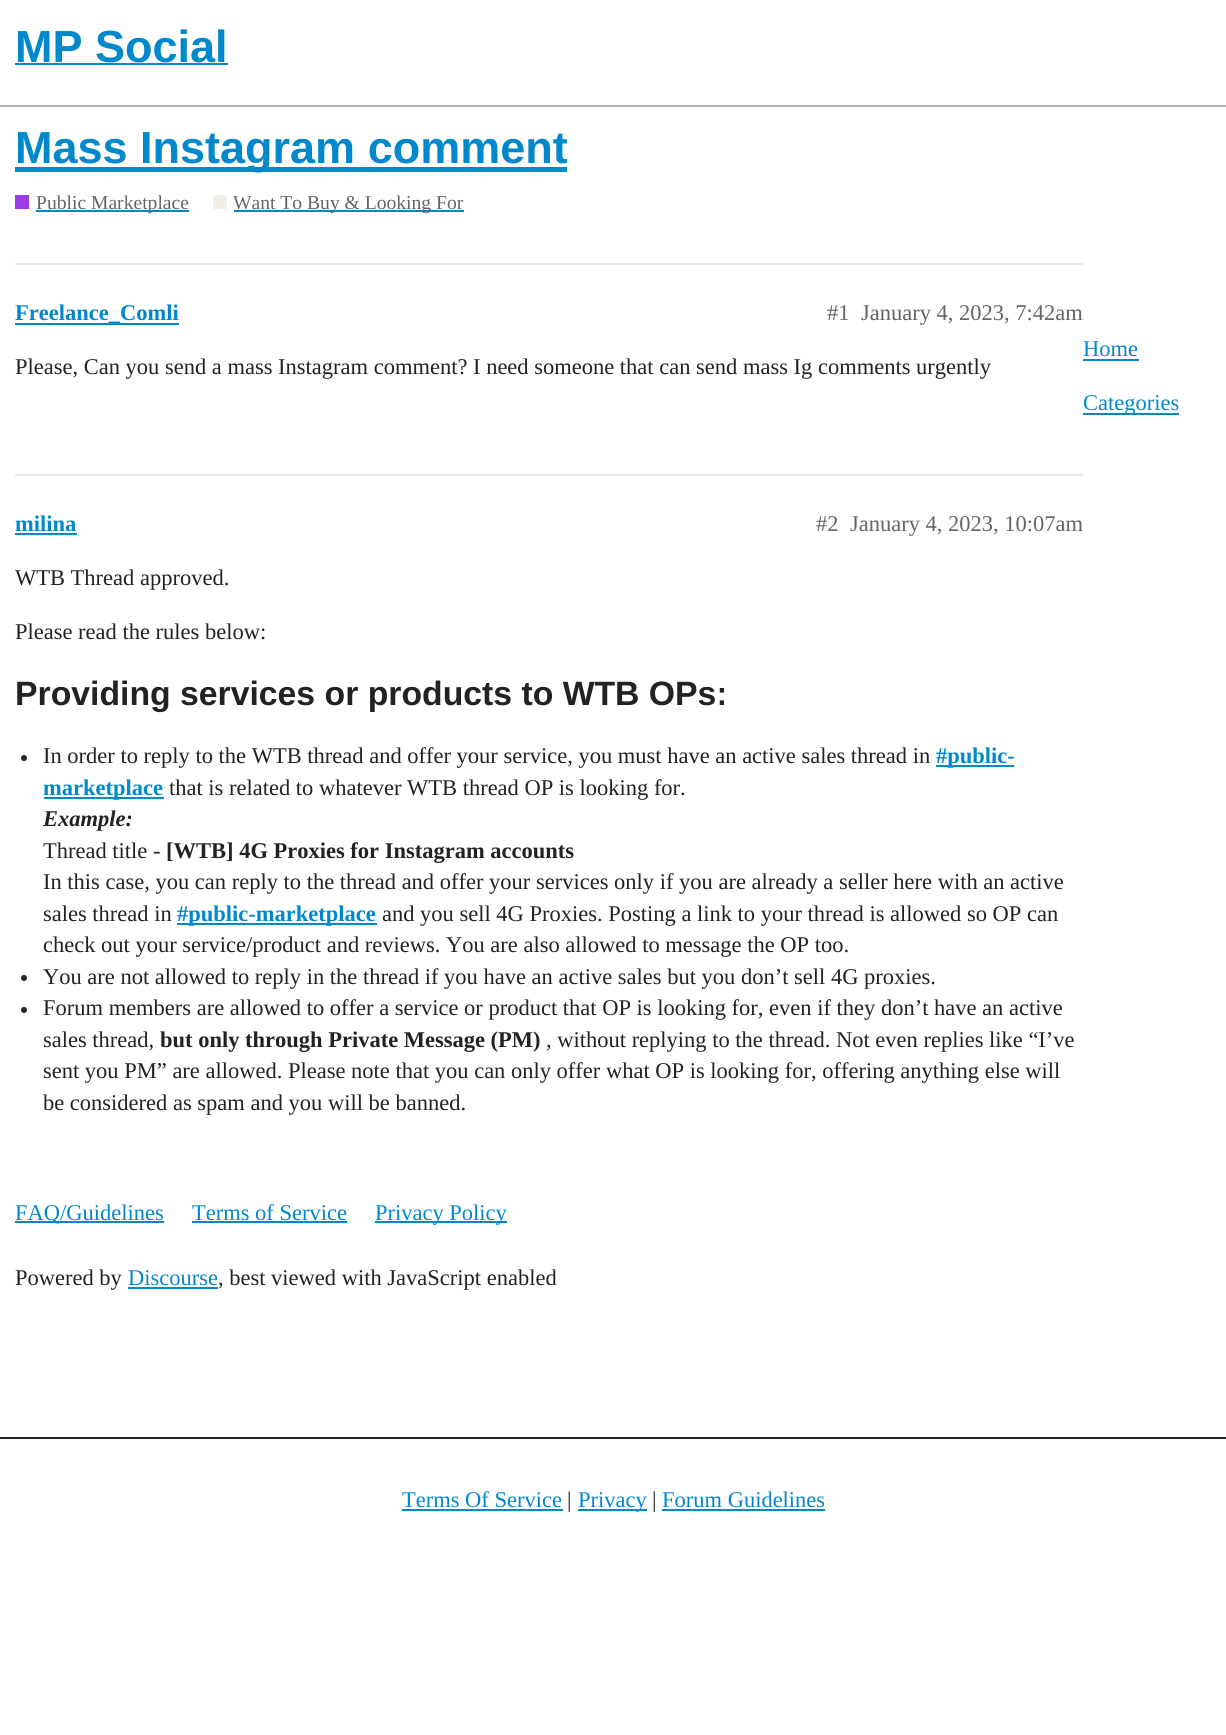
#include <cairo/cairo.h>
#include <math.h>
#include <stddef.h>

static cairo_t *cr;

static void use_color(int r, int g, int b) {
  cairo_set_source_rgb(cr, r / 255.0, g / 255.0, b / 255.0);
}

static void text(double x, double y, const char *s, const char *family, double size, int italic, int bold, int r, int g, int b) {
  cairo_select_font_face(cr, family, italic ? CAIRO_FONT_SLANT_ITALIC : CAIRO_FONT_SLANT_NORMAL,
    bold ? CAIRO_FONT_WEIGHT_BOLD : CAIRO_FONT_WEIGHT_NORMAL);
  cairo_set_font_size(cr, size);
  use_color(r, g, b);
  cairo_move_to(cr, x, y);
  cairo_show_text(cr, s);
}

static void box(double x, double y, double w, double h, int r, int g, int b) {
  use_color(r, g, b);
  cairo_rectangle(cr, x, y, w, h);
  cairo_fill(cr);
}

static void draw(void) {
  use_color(255, 255, 255);
  cairo_paint(cr);
  box(0, 105, 1226, 2, 175, 175, 175);
  box(15, 63, 213, 2, 0, 136, 204);
  box(15, 167, 552, 5, 0, 136, 204);
  box(15, 195, 14, 14, 156, 57, 232);
  box(36, 210, 153, 2, 0, 136, 204);
  box(213, 195, 14, 14, 242, 239, 233);
  box(234, 210, 230, 2, 0, 136, 204);
  box(15, 263, 1068, 2, 233, 233, 233);
  box(15, 323, 164, 2, 0, 136, 204);
  box(15, 474, 1068, 2, 233, 233, 233);
  box(15, 533, 62, 2, 0, 136, 204);
  use_color(34, 34, 34);
  cairo_arc(cr, 24, 758, 3, 0, 2 * M_PI);
  cairo_fill(cr);
  box(936, 765, 78, 2, 0, 136, 204);
  box(44, 797, 120, 2, 0, 136, 204);
  box(177, 923, 200, 2, 0, 136, 204);
  use_color(34, 34, 34);
  cairo_arc(cr, 24, 978, 3, 0, 2 * M_PI);
  cairo_fill(cr);
  cairo_arc(cr, 24, 1010, 3, 0, 2 * M_PI);
  cairo_fill(cr);
  box(1083, 359, 56, 2, 0, 136, 204);
  box(1083, 413, 96, 2, 0, 136, 204);
  box(15, 1221, 149, 2, 0, 136, 204);
  box(192, 1221, 155, 2, 0, 136, 204);
  box(375, 1221, 132, 2, 0, 136, 204);
  box(128, 1287, 90, 2, 0, 136, 204);
  box(0, 1437, 1226, 2, 34, 34, 34);
  box(402, 1509, 161, 2, 0, 136, 204);
  box(578, 1509, 69, 2, 0, 136, 204);
  box(662, 1509, 163, 2, 0, 136, 204);
  text(15, 62, "MP Social", "Liberation Sans", 45, 0, 1, 0, 136, 204);
  text(15, 163, "Mass Instagram comment", "Liberation Sans", 45, 0, 1, 0, 136, 204);
  text(36, 209, "Public Marketplace", "Liberation Serif", 19.6, 0, 0, 100, 100, 100);
  text(233, 209, "Want To Buy & Looking For", "Liberation Serif", 19.6, 0, 0, 100, 100, 100);
  text(15, 320, "Freelance_Comli", "Liberation Serif", 22.5, 0, 1, 0, 136, 204);
  text(827, 320, "#1", "Liberation Serif", 22.5, 0, 0, 100, 100, 100);
  text(861, 320, "January 4, 2023, 7:42am", "Liberation Serif", 22.5, 0, 0, 100, 100, 100);
  text(15, 374, "Please, Can you send a mass Instagram comment? I need someone that can send mass Ig comments urgently", "Liberation Serif", 22.5, 0, 0, 34, 34, 34);
  text(15, 531, "milina", "Liberation Serif", 22.5, 0, 1, 0, 136, 204);
  text(816, 531, "#2", "Liberation Serif", 22.5, 0, 0, 100, 100, 100);
  text(850, 531, "January 4, 2023, 10:07am", "Liberation Serif", 22.5, 0, 0, 100, 100, 100);
  text(15, 585, "WTB Thread approved.", "Liberation Serif", 22.5, 0, 0, 34, 34, 34);
  text(15, 639, "Please read the rules below:", "Liberation Serif", 22.5, 0, 0, 34, 34, 34);
  text(15, 705, "Providing services or products to WTB OPs:", "Liberation Sans", 33.75, 0, 1, 34, 34, 34);
  text(43, 763, "In order to reply to the WTB thread and offer your service, you must have an active sales thread in", "Liberation Serif", 22.5, 0, 0, 34, 34, 34);
  text(936, 763, "#public-", "Liberation Serif", 22.5, 0, 1, 0, 136, 204);
  text(43, 795, "marketplace", "Liberation Serif", 22.5, 0, 1, 0, 136, 204);
  text(169, 795, "that is related to whatever WTB thread OP is looking for.", "Liberation Serif", 22.5, 0, 0, 34, 34, 34);
  text(43, 826, "Example:", "Liberation Serif", 22.5, 1, 1, 34, 34, 34);
  text(43, 858, "Thread title -", "Liberation Serif", 22.5, 0, 0, 34, 34, 34);
  text(166, 858, "[WTB] 4G Proxies for Instagram accounts", "Liberation Serif", 22.5, 0, 1, 34, 34, 34);
  text(43, 889, "In this case, you can reply to the thread and offer your services only if you are already a seller here with an active", "Liberation Serif", 22.5, 0, 0, 34, 34, 34);
  text(43, 921, "sales thread in", "Liberation Serif", 22.5, 0, 0, 34, 34, 34);
  text(177, 921, "#public-marketplace", "Liberation Serif", 22.5, 0, 1, 0, 136, 204);
  text(382, 921, "and you sell 4G Proxies. Posting a link to your thread is allowed so OP can", "Liberation Serif", 22.5, 0, 0, 34, 34, 34);
  text(43, 952, "check out your service/product and reviews. You are also allowed to message the OP too.", "Liberation Serif", 22.5, 0, 0, 34, 34, 34);
  text(43, 984, "You are not allowed to reply in the thread if you have an active sales but you don’t sell 4G proxies.", "Liberation Serif", 22.5, 0, 0, 34, 34, 34);
  text(43, 1015, "Forum members are allowed to offer a service or product that OP is looking for, even if they don’t have an active", "Liberation Serif", 22.5, 0, 0, 34, 34, 34);
  text(43, 1047, "sales thread,", "Liberation Serif", 22.5, 0, 0, 34, 34, 34);
  text(160, 1047, "but only through Private Message (PM)", "Liberation Serif", 22.5, 0, 1, 34, 34, 34);
  text(546, 1047, ", without replying to the thread. Not even replies like “I’ve", "Liberation Serif", 22.5, 0, 0, 34, 34, 34);
  text(43, 1078, "sent you PM” are allowed. Please note that you can only offer what OP is looking for, offering anything else will", "Liberation Serif", 22.5, 0, 0, 34, 34, 34);
  text(43, 1110, "be considered as spam and you will be banned.", "Liberation Serif", 22.5, 0, 0, 34, 34, 34);
  text(1083, 356, "Home", "Liberation Serif", 22.5, 0, 0, 0, 136, 204);
  text(1083, 410, "Categories", "Liberation Serif", 22.5, 0, 0, 0, 136, 204);
  text(15, 1220, "FAQ/Guidelines", "Liberation Serif", 22.5, 0, 0, 0, 136, 204);
  text(192, 1220, "Terms of Service", "Liberation Serif", 22.5, 0, 0, 0, 136, 204);
  text(375, 1220, "Privacy Policy", "Liberation Serif", 22.5, 0, 0, 0, 136, 204);
  text(15, 1285, "Powered by", "Liberation Serif", 22.5, 0, 0, 34, 34, 34);
  text(128, 1285, "Discourse", "Liberation Serif", 22.5, 0, 0, 0, 136, 204);
  text(218, 1285, ", best viewed with JavaScript enabled", "Liberation Serif", 22.5, 0, 0, 34, 34, 34);
  text(402, 1507, "Terms Of Service", "Liberation Serif", 22.5, 0, 0, 0, 136, 204);
  text(567, 1507, "|", "Liberation Serif", 22.5, 0, 0, 34, 34, 34);
  text(578, 1507, "Privacy", "Liberation Serif", 22.5, 0, 0, 0, 136, 204);
  text(652, 1507, "|", "Liberation Serif", 22.5, 0, 0, 34, 34, 34);
  text(662, 1507, "Forum Guidelines", "Liberation Serif", 22.5, 0, 0, 0, 136, 204);
}

int main(void) {
  cairo_surface_t *surface = cairo_image_surface_create(CAIRO_FORMAT_RGB24, 1226, 1735);
  cr = cairo_create(surface);
  cairo_font_options_t *options = cairo_font_options_create();
  cairo_font_options_set_hint_metrics(options, CAIRO_HINT_METRICS_OFF);
  cairo_font_options_set_hint_style(options, CAIRO_HINT_STYLE_NONE);
  cairo_set_font_options(cr, options);
  cairo_set_miter_limit(cr, 4);
  draw();
  cairo_surface_write_to_png(surface, "out.png");
  cairo_font_options_destroy(options);
  cairo_destroy(cr);
  cairo_surface_destroy(surface);
  return 0;
}
